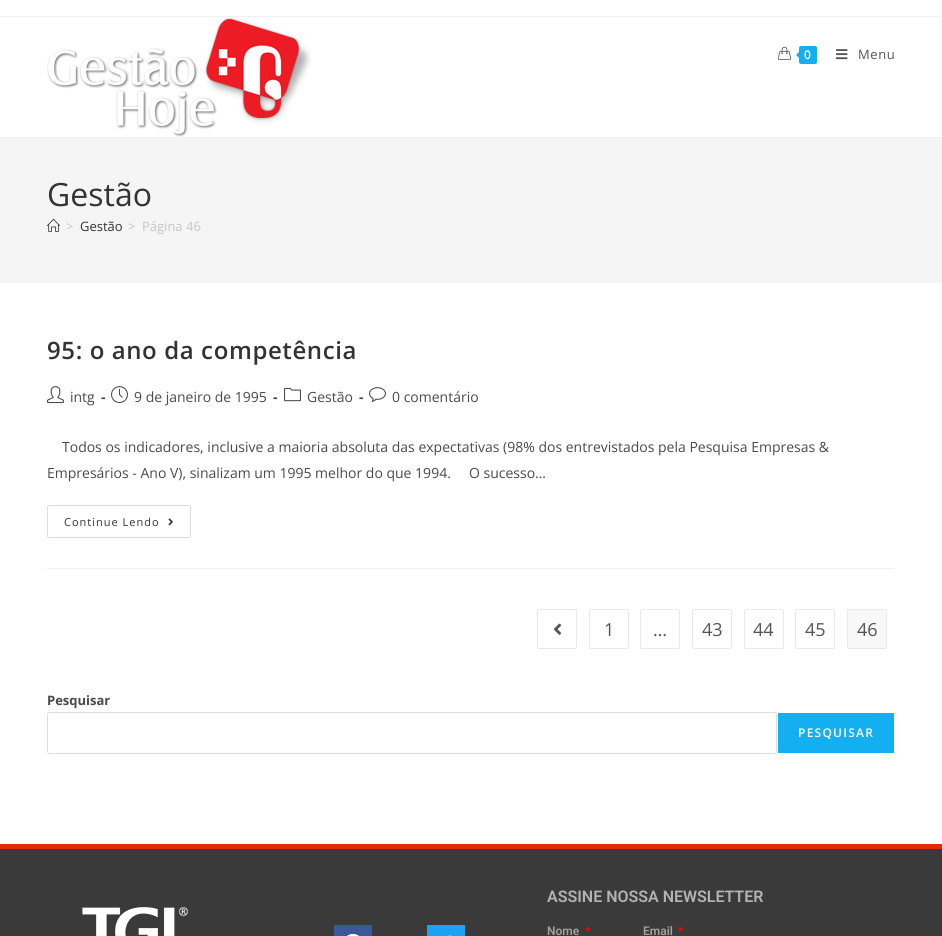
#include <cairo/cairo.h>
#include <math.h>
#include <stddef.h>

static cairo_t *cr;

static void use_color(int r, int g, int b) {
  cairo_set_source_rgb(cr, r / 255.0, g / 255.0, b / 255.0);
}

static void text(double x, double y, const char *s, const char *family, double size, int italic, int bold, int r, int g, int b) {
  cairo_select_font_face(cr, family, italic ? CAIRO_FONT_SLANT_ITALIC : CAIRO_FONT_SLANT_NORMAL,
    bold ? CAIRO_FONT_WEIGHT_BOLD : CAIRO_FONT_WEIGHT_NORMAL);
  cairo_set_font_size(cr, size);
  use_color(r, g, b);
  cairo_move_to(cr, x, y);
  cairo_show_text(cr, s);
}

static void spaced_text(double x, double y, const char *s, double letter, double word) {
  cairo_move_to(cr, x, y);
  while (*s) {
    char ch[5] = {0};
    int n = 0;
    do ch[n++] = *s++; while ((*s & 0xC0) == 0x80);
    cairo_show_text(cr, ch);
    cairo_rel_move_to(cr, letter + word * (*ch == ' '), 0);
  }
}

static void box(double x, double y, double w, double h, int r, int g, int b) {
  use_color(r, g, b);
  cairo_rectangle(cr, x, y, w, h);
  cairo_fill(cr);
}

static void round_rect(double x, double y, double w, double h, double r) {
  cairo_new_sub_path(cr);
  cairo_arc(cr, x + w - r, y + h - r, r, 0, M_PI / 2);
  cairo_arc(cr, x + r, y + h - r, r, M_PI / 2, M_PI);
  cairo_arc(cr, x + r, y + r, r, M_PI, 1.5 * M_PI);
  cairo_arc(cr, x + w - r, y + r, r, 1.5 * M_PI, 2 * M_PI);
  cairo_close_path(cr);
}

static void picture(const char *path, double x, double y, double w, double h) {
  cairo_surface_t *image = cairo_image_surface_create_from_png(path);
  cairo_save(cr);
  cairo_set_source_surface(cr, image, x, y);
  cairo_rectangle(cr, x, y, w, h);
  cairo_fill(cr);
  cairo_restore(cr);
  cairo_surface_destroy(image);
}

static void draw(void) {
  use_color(255, 255, 255);
  cairo_paint(cr);
  box(0, 16, 942, 1, 241, 241, 241);
  box(0, 137, 942, 1, 241, 241, 241);
  picture("img_01.png", 47, 17, 264, 120);
  picture("img_02.png", 778, 46, 13, 14);
  use_color(19, 175, 240);
  round_rect(799, 46, 18, 18, 2);
  cairo_fill(cr);
  cairo_new_path(cr);
  cairo_move_to(cr, 801, 50);
  cairo_line_to(cr, 801, 60);
  cairo_line_to(cr, 796, 55);
  cairo_close_path(cr);
  cairo_fill(cr);
  picture("img_03.png", 836, 49, 12, 11);
  box(0, 138, 942, 145, 245, 245, 245);
  picture("img_04.png", 47, 218, 13, 14);
  box(47, 568, 848, 1, 241, 241, 241);
  picture("img_05.png", 47, 386, 17, 18);
  picture("img_06.png", 111, 386, 17, 18);
  picture("img_07.png", 284, 387, 17, 15);
  picture("img_08.png", 369, 387, 17, 15);
  round_rect(47.5, 505.5, 143, 32, 1.5);
  use_color(221, 221, 221);
  cairo_set_line_width(cr, 1);
  cairo_stroke(cr);
  picture("img_09.png", 168, 518, 5, 8);
  round_rect(537.5, 609.5, 39, 39, 1.5);
  use_color(233, 233, 233);
  cairo_stroke(cr);
  picture("img_10.png", 553, 623, 9, 12);
  round_rect(589.5, 609.5, 39, 39, 1.5);
  cairo_stroke(cr);
  round_rect(640.5, 609.5, 39, 39, 1.5);
  cairo_stroke(cr);
  round_rect(692.5, 609.5, 39, 39, 1.5);
  cairo_stroke(cr);
  round_rect(744.5, 609.5, 39, 39, 1.5);
  cairo_stroke(cr);
  round_rect(795.5, 609.5, 39, 39, 1.5);
  cairo_stroke(cr);
  use_color(248, 248, 248);
  round_rect(847.5, 609.5, 39, 39, 1.5);
  cairo_fill_preserve(cr);
  use_color(233, 233, 233);
  cairo_stroke(cr);
  round_rect(47.5, 712.5, 729, 41, 2.5);
  use_color(221, 221, 221);
  cairo_stroke(cr);
  box(778, 713, 116, 40, 19, 175, 240);
  box(0, 849, 942, 87, 58, 58, 58);
  box(0, 844, 942, 5, 232, 42, 0);
  picture("img_11.png", 82, 907, 106, 29);
  box(334, 925, 38, 11, 59, 89, 152);
  picture("img_12.png", 347, 934, 12, 2);
  box(427, 925, 38, 11, 29, 161, 242);
  picture("img_13.png", 448, 935, 4, 1);
  cairo_select_font_face(cr, "Open Sans SemiBold", CAIRO_FONT_SLANT_NORMAL, CAIRO_FONT_WEIGHT_NORMAL);
  cairo_set_font_size(cr, 12);
  use_color(255, 255, 255);
  spaced_text(804, 59, "0", 0.6, 0);
  cairo_select_font_face(cr, "Open Sans", CAIRO_FONT_SLANT_NORMAL, CAIRO_FONT_WEIGHT_NORMAL);
  cairo_set_font_size(cr, 13);
  use_color(85, 85, 85);
  spaced_text(858, 59, "Menu", 0.6, 0);
  text(47, 206, "Gestão", "Open Sans", 32, 0, 0, 51, 51, 51);
  text(66, 231, ">", "Open Sans", 13, 0, 0, 198, 198, 198);
  text(80, 231, "Gestão", "Open Sans", 13, 0, 0, 51, 51, 51);
  text(128, 231, ">", "Open Sans", 13, 0, 0, 198, 198, 198);
  text(142, 231, "Página 46", "Open Sans", 13, 0, 0, 198, 198, 198);
  cairo_select_font_face(cr, "Open Sans SemiBold", CAIRO_FONT_SLANT_NORMAL, CAIRO_FONT_WEIGHT_NORMAL);
  cairo_set_font_size(cr, 24);
  use_color(51, 51, 51);
  spaced_text(47, 359, "95: o ano da competência", 0.6, 0);
  text(70, 402, "intg", "Open Sans", 14, 0, 0, 74, 74, 74);
  text(101, 402, "-", "Open Sans", 14, 0, 1, 74, 74, 74);
  text(134, 402, "9 de janeiro de 1995", "Open Sans", 14, 0, 0, 74, 74, 74);
  text(273, 402, "-", "Open Sans", 14, 0, 1, 74, 74, 74);
  text(307, 402, "Gestão", "Open Sans", 14, 0, 0, 74, 74, 74);
  text(359, 402, "-", "Open Sans", 14, 0, 1, 74, 74, 74);
  text(392, 402, "0 comentário", "Open Sans", 14, 0, 0, 74, 74, 74);
  text(62, 452, "Todos os indicadores, inclusive a maioria absoluta das expectativas (98% dos entrevistados pela Pesquisa Empresas &", "Open Sans", 14, 0, 0, 74, 74, 74);
  text(47, 478, "Empresários - Ano V), sinalizam um 1995 melhor do que 1994.     O sucesso…", "Open Sans", 14, 0, 0, 74, 74, 74);
  cairo_set_font_size(cr, 11);
  use_color(51, 51, 51);
  spaced_text(64, 526, "Continue Lendo", 1, 0);
  text(604, 636, "1", "Open Sans", 18, 0, 0, 85, 85, 85);
  text(653, 636, "…", "Open Sans", 18, 0, 0, 85, 85, 85);
  text(702, 636, "43", "Open Sans", 18, 0, 0, 85, 85, 85);
  text(753, 636, "44", "Open Sans", 18, 0, 0, 85, 85, 85);
  text(805, 636, "45", "Open Sans", 18, 0, 0, 85, 85, 85);
  text(857, 636, "46", "Open Sans", 18, 0, 0, 85, 85, 85);
  text(47, 705, "Pesquisar", "Open Sans", 13, 0, 1, 74, 74, 74);
  cairo_select_font_face(cr, "Open Sans SemiBold", CAIRO_FONT_SLANT_NORMAL, CAIRO_FONT_WEIGHT_NORMAL);
  cairo_set_font_size(cr, 12);
  use_color(255, 255, 255);
  spaced_text(798, 737, "PESQUISAR", 1.25, 0);
  text(547, 902, "ASSINE NOSSA NEWSLETTER", "Roboto SemiBold", 16, 0, 0, 180, 178, 178);
  text(547, 935, "Nome", "Roboto SemiBold", 12, 0, 0, 162, 162, 162);
  text(585, 935, "*", "Roboto SemiBold", 12, 0, 0, 255, 0, 0);
  text(643, 935, "Email", "Roboto SemiBold", 12, 0, 0, 162, 162, 162);
  text(678, 935, "*", "Roboto SemiBold", 12, 0, 0, 255, 0, 0);
}

int main(void) {
  cairo_surface_t *surface = cairo_image_surface_create(CAIRO_FORMAT_RGB24, 942, 936);
  cr = cairo_create(surface);
  cairo_font_options_t *options = cairo_font_options_create();
  cairo_font_options_set_hint_metrics(options, CAIRO_HINT_METRICS_OFF);
  cairo_font_options_set_hint_style(options, CAIRO_HINT_STYLE_NONE);
  cairo_set_font_options(cr, options);
  cairo_set_miter_limit(cr, 4);
  draw();
  cairo_surface_write_to_png(surface, "out.png");
  cairo_font_options_destroy(options);
  cairo_destroy(cr);
  cairo_surface_destroy(surface);
  return 0;
}
